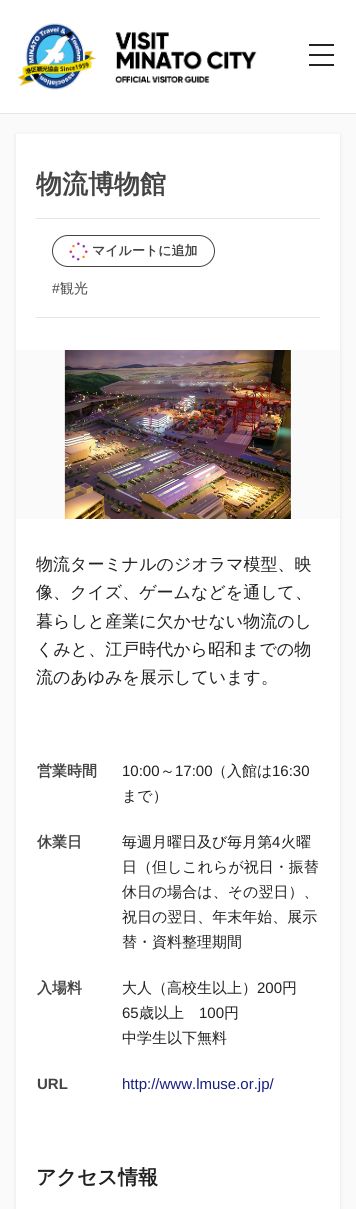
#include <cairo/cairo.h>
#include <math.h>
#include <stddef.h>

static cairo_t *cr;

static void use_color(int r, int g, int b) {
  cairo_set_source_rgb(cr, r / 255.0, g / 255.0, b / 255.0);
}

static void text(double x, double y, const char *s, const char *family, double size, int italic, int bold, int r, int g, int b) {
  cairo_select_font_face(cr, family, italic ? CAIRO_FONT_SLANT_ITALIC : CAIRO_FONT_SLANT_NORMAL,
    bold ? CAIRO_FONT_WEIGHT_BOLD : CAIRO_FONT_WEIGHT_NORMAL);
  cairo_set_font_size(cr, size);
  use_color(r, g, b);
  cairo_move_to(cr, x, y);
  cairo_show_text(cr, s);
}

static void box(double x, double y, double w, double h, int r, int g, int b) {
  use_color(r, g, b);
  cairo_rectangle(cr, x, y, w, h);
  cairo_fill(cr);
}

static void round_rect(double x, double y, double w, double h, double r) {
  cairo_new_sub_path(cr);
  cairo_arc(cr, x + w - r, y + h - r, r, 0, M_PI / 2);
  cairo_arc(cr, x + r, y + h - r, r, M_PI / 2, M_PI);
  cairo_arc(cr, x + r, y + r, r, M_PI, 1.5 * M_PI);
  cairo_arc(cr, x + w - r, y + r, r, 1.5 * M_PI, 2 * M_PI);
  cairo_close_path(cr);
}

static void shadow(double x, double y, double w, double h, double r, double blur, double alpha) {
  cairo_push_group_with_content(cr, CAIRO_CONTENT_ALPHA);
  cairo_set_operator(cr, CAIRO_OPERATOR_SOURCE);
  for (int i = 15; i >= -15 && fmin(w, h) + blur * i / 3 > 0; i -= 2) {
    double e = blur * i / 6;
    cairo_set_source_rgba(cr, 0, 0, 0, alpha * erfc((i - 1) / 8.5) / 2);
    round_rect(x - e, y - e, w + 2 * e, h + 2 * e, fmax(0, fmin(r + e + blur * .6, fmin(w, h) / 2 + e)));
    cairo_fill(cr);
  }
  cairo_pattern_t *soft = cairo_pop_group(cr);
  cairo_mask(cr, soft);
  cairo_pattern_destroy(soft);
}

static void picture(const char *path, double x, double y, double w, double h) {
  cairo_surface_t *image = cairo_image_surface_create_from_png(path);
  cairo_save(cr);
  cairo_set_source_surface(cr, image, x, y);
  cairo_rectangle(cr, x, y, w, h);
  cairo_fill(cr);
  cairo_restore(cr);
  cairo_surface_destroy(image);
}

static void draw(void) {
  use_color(250, 250, 250);
  cairo_paint(cr);
  box(0, 0, 356, 113, 255, 255, 255);
  box(0, 113, 356, 1, 230, 230, 230);
  picture("img_01.png", 17, 23, 240, 67);
  box(309, 54, 25, 2, 34, 34, 34);
  box(309, 44, 25, 2, 34, 34, 34);
  box(309, 64, 25, 2, 34, 34, 34);
  use_color(0, 0, 0);
  shadow(16, 135, 324, 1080, 0, 2, 0.1);
  box(16, 134, 324, 1075, 255, 255, 255);
  box(36, 218, 284, 1, 230, 230, 230);
  box(36, 317, 284, 1, 230, 230, 230);
  round_rect(52.5, 235.5, 162, 31, 15.5);
  use_color(68, 68, 68);
  cairo_set_line_width(cr, 1);
  cairo_stroke(cr);
  picture("img_02.png", 69, 242, 19, 19);
  box(16, 350, 324, 169, 250, 250, 250);
  picture("img_03.png", 64, 350, 227, 169);
  text(36, 193, "物流博物館", "WenQuanYi Zen Hei", 26, 0, 1, 68, 68, 68);
  text(92, 255, "マイルートに追加", "WenQuanYi Zen Hei", 13, 0, 1, 68, 68, 68);
  text(52, 293, "#", "Liberation Sans", 14, 0, 0, 68, 68, 68);
  text(60, 293, "観光", "WenQuanYi Zen Hei Medium", 14, 0, 0, 68, 68, 68);
  text(36, 570, "物流ターミナルのジオラマ模型、映", "WenQuanYi Zen Hei Medium", 17, 0, 0, 33, 33, 33);
  text(36, 598, "像、クイズ、ゲームなどを通して、", "WenQuanYi Zen Hei Medium", 17, 0, 0, 33, 33, 33);
  text(36, 627, "暮らしと産業に欠かせない物流のし", "WenQuanYi Zen Hei Medium", 17, 0, 0, 33, 33, 33);
  text(36, 655, "くみと、江戸時代から昭和までの物", "WenQuanYi Zen Hei Medium", 17, 0, 0, 33, 33, 33);
  text(36, 683, "流のあゆみを展示しています。", "WenQuanYi Zen Hei Medium", 17, 0, 0, 33, 33, 33);
  text(37, 776, "営業時間", "WenQuanYi Zen Hei", 15, 0, 1, 68, 68, 68);
  text(122, 776, "10:00", "Liberation Sans", 15, 0, 0, 33, 33, 33);
  text(160, 776, "～", "WenQuanYi Zen Hei Medium", 15, 0, 0, 33, 33, 33);
  text(175, 776, "17:00", "Liberation Sans", 15, 0, 0, 33, 33, 33);
  text(212, 776, "（入館は", "WenQuanYi Zen Hei Medium", 15, 0, 0, 33, 33, 33);
  text(272, 776, "16:30", "Liberation Sans", 15, 0, 0, 33, 33, 33);
  text(122, 801, "まで）", "WenQuanYi Zen Hei Medium", 15, 0, 0, 33, 33, 33);
  text(37, 847, "休業日", "WenQuanYi Zen Hei", 15, 0, 1, 68, 68, 68);
  text(122, 847, "毎週月曜日及び毎月第", "WenQuanYi Zen Hei Medium", 15, 0, 0, 33, 33, 33);
  text(272, 847, "4", "Liberation Sans", 15, 0, 0, 33, 33, 33);
  text(281, 847, "火曜", "WenQuanYi Zen Hei Medium", 15, 0, 0, 33, 33, 33);
  text(122, 872, "日（但しこれらが祝日・振替", "WenQuanYi Zen Hei Medium", 15, 0, 0, 33, 33, 33);
  text(122, 897, "休日の場合は、その翌日）、", "WenQuanYi Zen Hei Medium", 15, 0, 0, 33, 33, 33);
  text(122, 922, "祝日の翌日、年末年始、展示", "WenQuanYi Zen Hei Medium", 15, 0, 0, 33, 33, 33);
  text(122, 947, "替・資料整理期間", "WenQuanYi Zen Hei Medium", 15, 0, 0, 33, 33, 33);
  text(37, 993, "入場料", "WenQuanYi Zen Hei", 15, 0, 1, 68, 68, 68);
  text(122, 993, "大人（高校生以上）", "WenQuanYi Zen Hei Medium", 15, 0, 0, 33, 33, 33);
  text(257, 993, "200", "Liberation Sans", 15, 0, 0, 33, 33, 33);
  text(282, 993, "円", "WenQuanYi Zen Hei Medium", 15, 0, 0, 33, 33, 33);
  text(122, 1018, "65", "Liberation Sans", 15, 0, 0, 33, 33, 33);
  text(139, 1018, "歳以上", "WenQuanYi Zen Hei Medium", 15, 0, 0, 33, 33, 33);
  text(199, 1018, "100", "Liberation Sans", 15, 0, 0, 33, 33, 33);
  text(224, 1018, "円", "WenQuanYi Zen Hei Medium", 15, 0, 0, 33, 33, 33);
  text(122, 1043, "中学生以下無料", "WenQuanYi Zen Hei Medium", 15, 0, 0, 33, 33, 33);
  text(37, 1089, "URL", "Liberation Sans", 15, 0, 1, 68, 68, 68);
  text(122, 1089, "http://www.lmuse.or.jp/", "Liberation Sans", 15, 0, 0, 24, 31, 122);
  text(36, 1184, "アクセス情報", "WenQuanYi Zen Hei", 20, 0, 1, 33, 33, 33);
}

int main(void) {
  cairo_surface_t *surface = cairo_image_surface_create(CAIRO_FORMAT_RGB24, 356, 1209);
  cr = cairo_create(surface);
  cairo_font_options_t *options = cairo_font_options_create();
  cairo_font_options_set_hint_metrics(options, CAIRO_HINT_METRICS_OFF);
  cairo_font_options_set_hint_style(options, CAIRO_HINT_STYLE_NONE);
  cairo_set_font_options(cr, options);
  cairo_set_miter_limit(cr, 4);
  draw();
  cairo_surface_write_to_png(surface, "out.png");
  cairo_font_options_destroy(options);
  cairo_destroy(cr);
  cairo_surface_destroy(surface);
  return 0;
}
